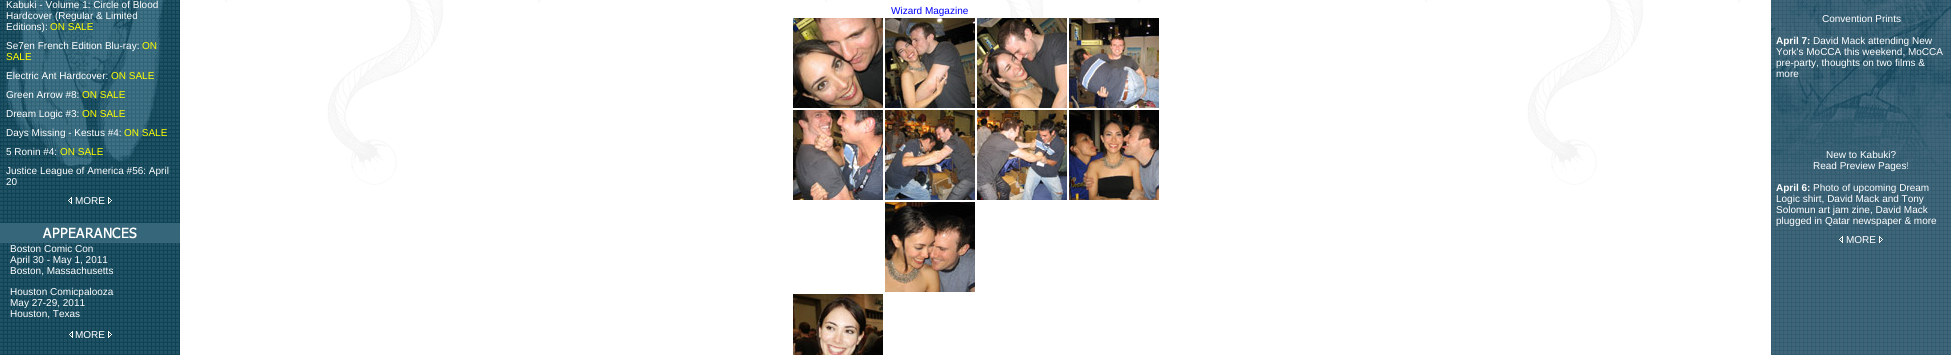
#include <cairo/cairo.h>
#include <math.h>
#include <stddef.h>

static cairo_t *cr;

static void use_color(int r, int g, int b) {
  cairo_set_source_rgb(cr, r / 255.0, g / 255.0, b / 255.0);
}

static void text(double x, double y, const char *s, const char *family, double size, int italic, int bold, int r, int g, int b) {
  cairo_select_font_face(cr, family, italic ? CAIRO_FONT_SLANT_ITALIC : CAIRO_FONT_SLANT_NORMAL,
    bold ? CAIRO_FONT_WEIGHT_BOLD : CAIRO_FONT_WEIGHT_NORMAL);
  cairo_set_font_size(cr, size);
  use_color(r, g, b);
  cairo_move_to(cr, x, y);
  cairo_show_text(cr, s);
}

static void picture(const char *path, double x, double y, double w, double h) {
  cairo_surface_t *image = cairo_image_surface_create_from_png(path);
  cairo_save(cr);
  cairo_set_source_surface(cr, image, x, y);
  cairo_rectangle(cr, x, y, w, h);
  cairo_fill(cr);
  cairo_restore(cr);
  cairo_surface_destroy(image);
}

static void draw(void) {
  use_color(255, 255, 255);
  cairo_paint(cr);
  picture("img_01.png", 0, 0, 180, 355);
  picture("img_02.png", 0, 0, 179, 207);
  picture("img_03.png", 68, 197, 4, 7);
  picture("img_04.png", 108, 197, 4, 7);
  picture("img_05.png", 0, 223, 180, 20);
  picture("img_06.png", 69, 331, 4, 7);
  picture("img_07.png", 108, 331, 4, 7);
  picture("img_08.png", 180, 0, 1591, 355);
  picture("img_09.png", 793, 18, 90, 90);
  picture("img_10.png", 885, 18, 90, 90);
  picture("img_11.png", 977, 18, 90, 90);
  picture("img_12.png", 1069, 18, 90, 90);
  picture("img_13.png", 793, 110, 90, 90);
  picture("img_14.png", 885, 110, 90, 90);
  picture("img_15.png", 977, 110, 90, 90);
  picture("img_16.png", 1069, 110, 90, 90);
  picture("img_17.png", 885, 202, 90, 90);
  picture("img_18.png", 793, 294, 90, 61);
  picture("img_19.png", 1771, 174, 180, 181);
  picture("img_20.png", 1771, 0, 180, 174);
  picture("img_21.png", 1839, 236, 4, 7);
  picture("img_22.png", 1879, 236, 4, 7);
  text(6, 8, "Kabuki - Volume 1: Circle of Blood", "Liberation Sans", 10, 0, 0, 255, 255, 255);
  text(6, 19, "Hardcover (Regular & Limited", "Liberation Sans", 10, 0, 0, 255, 255, 255);
  text(6, 30, "Editions):", "Liberation Sans", 10, 0, 0, 255, 255, 255);
  text(50, 30, "ON SALE", "Liberation Sans", 10, 0, 0, 255, 255, 0);
  text(6, 49, "Se7en French Edition Blu-ray:", "Liberation Sans", 10, 0, 0, 255, 255, 255);
  text(142, 49, "ON", "Liberation Sans", 10, 0, 0, 255, 255, 0);
  text(6, 60, "SALE", "Liberation Sans", 10, 0, 0, 255, 255, 0);
  text(6, 79, "Electric Ant Hardcover:", "Liberation Sans", 10, 0, 0, 255, 255, 255);
  text(111, 79, "ON SALE", "Liberation Sans", 10, 0, 0, 255, 255, 0);
  text(6, 98, "Green Arrow #8:", "Liberation Sans", 10, 0, 0, 255, 255, 255);
  text(82, 98, "ON SALE", "Liberation Sans", 10, 0, 0, 255, 255, 0);
  text(6, 117, "Dream Logic #3:", "Liberation Sans", 10, 0, 0, 255, 255, 255);
  text(82, 117, "ON SALE", "Liberation Sans", 10, 0, 0, 255, 255, 0);
  text(6, 136, "Days Missing - Kestus #4:", "Liberation Sans", 10, 0, 0, 255, 255, 255);
  text(124, 136, "ON SALE", "Liberation Sans", 10, 0, 0, 255, 255, 0);
  text(6, 155, "5 Ronin #4:", "Liberation Sans", 10, 0, 0, 255, 255, 255);
  text(60, 155, "ON SALE", "Liberation Sans", 10, 0, 0, 255, 255, 0);
  text(6, 174, "Justice League of America #56: April", "Liberation Sans", 10, 0, 0, 255, 255, 255);
  text(6, 185, "20", "Liberation Sans", 10, 0, 0, 255, 255, 255);
  text(75, 204, "MORE", "Liberation Sans", 10, 0, 0, 255, 255, 255);
  text(10, 252, "Boston Comic Con", "Liberation Sans", 10, 0, 0, 255, 255, 255);
  text(10, 263, "April 30 - May 1, 2011", "Liberation Sans", 10, 0, 0, 255, 255, 255);
  text(10, 274, "Boston, Massachusetts", "Liberation Sans", 10, 0, 0, 255, 255, 255);
  text(10, 295, "Houston Comicpalooza", "Liberation Sans", 10, 0, 0, 255, 255, 255);
  text(10, 306, "May 27-29, 2011", "Liberation Sans", 10, 0, 0, 255, 255, 255);
  text(10, 317, "Houston, Texas", "Liberation Sans", 10, 0, 0, 255, 255, 255);
  text(75, 338, "MORE", "Liberation Sans", 10, 0, 0, 255, 255, 255);
  text(891, 14, "Wizard Magazine", "Liberation Sans", 10, 0, 0, 0, 0, 255);
  text(1822, 22, "Convention Prints", "Liberation Sans", 10, 0, 0, 255, 255, 255);
  text(1776, 44, "April 7:", "Liberation Sans", 10, 0, 1, 255, 255, 255);
  text(1813, 44, "David Mack attending New", "Liberation Sans", 10, 0, 0, 255, 255, 255);
  text(1776, 55, "York's MoCCA this weekend, MoCCA", "Liberation Sans", 10, 0, 0, 255, 255, 255);
  text(1776, 66, "pre-party, thoughts on two films &", "Liberation Sans", 10, 0, 0, 255, 255, 255);
  text(1776, 77, "more", "Liberation Sans", 10, 0, 0, 255, 255, 255);
  text(1826, 158, "New to Kabuki?", "Liberation Sans", 10, 0, 0, 255, 255, 255);
  text(1813, 169, "Read Preview Pages!", "Liberation Sans", 10, 0, 0, 255, 255, 255);
  text(1776, 191, "April 6:", "Liberation Sans", 10, 0, 1, 255, 255, 255);
  text(1813, 191, "Photo of upcoming Dream", "Liberation Sans", 10, 0, 0, 255, 255, 255);
  text(1776, 202, "Logic shirt, David Mack and Tony", "Liberation Sans", 10, 0, 0, 255, 255, 255);
  text(1776, 213, "Solomun art jam zine, David Mack", "Liberation Sans", 10, 0, 0, 255, 255, 255);
  text(1776, 224, "plugged in Qatar newspaper & more", "Liberation Sans", 10, 0, 0, 255, 255, 255);
  text(1846, 243, "MORE", "Liberation Sans", 10, 0, 0, 255, 255, 255);
}

int main(void) {
  cairo_surface_t *surface = cairo_image_surface_create(CAIRO_FORMAT_RGB24, 1951, 355);
  cr = cairo_create(surface);
  cairo_font_options_t *options = cairo_font_options_create();
  cairo_font_options_set_hint_metrics(options, CAIRO_HINT_METRICS_OFF);
  cairo_font_options_set_hint_style(options, CAIRO_HINT_STYLE_NONE);
  cairo_set_font_options(cr, options);
  cairo_set_miter_limit(cr, 4);
  draw();
  cairo_surface_write_to_png(surface, "out.png");
  cairo_font_options_destroy(options);
  cairo_destroy(cr);
  cairo_surface_destroy(surface);
  return 0;
}
